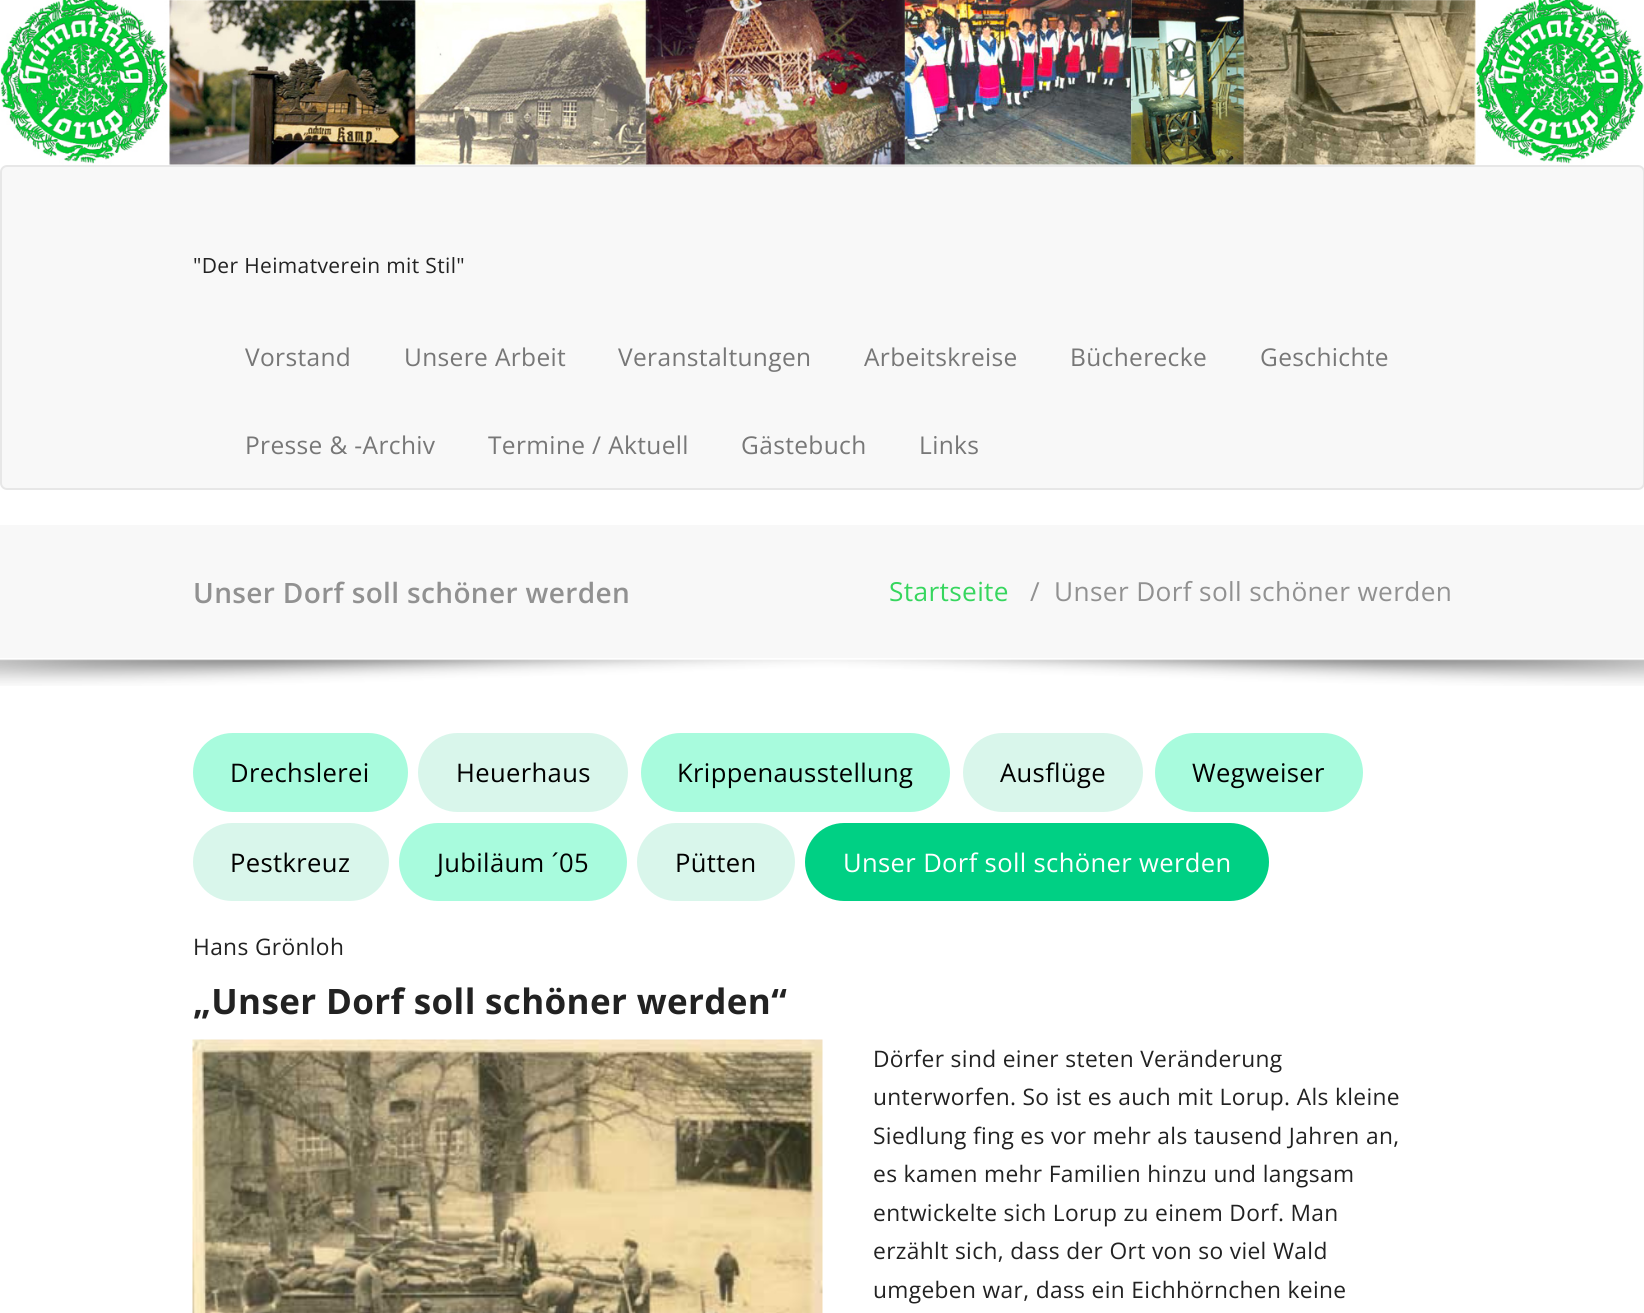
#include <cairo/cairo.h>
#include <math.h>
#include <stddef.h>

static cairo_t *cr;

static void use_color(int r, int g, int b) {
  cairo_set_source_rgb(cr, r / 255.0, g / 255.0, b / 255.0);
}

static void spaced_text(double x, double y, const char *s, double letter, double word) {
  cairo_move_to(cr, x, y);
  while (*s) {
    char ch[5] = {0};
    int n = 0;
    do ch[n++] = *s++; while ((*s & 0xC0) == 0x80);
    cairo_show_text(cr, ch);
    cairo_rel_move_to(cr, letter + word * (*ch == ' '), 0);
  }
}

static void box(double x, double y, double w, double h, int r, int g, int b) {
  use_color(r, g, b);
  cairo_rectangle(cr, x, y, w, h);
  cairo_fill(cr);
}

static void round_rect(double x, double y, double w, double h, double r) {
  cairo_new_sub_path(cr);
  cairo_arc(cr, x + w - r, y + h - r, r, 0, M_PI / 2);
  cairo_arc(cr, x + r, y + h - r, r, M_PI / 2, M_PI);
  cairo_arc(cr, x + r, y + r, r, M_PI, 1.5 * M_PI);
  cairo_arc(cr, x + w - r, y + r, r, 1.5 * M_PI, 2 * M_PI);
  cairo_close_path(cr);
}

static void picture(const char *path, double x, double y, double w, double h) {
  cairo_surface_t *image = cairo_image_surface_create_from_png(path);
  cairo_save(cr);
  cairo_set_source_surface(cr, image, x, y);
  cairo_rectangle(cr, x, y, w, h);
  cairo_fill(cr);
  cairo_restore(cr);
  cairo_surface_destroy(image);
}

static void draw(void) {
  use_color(255, 255, 255);
  cairo_paint(cr);
  picture("img_01.png", 0, 0, 1644, 165);
  use_color(248, 248, 248);
  round_rect(1, 166, 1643, 323, 6);
  cairo_fill_preserve(cr);
  use_color(231, 231, 231);
  cairo_stroke(cr);
  box(0, 525, 1644, 133, 248, 248, 248);
  picture("img_02.png", 0, 659, 1644, 27);
  use_color(168, 251, 221);
  round_rect(193, 733, 215, 79, 39.5);
  cairo_fill(cr);
  use_color(217, 246, 235);
  round_rect(418, 733, 210, 79, 39.5);
  cairo_fill(cr);
  use_color(168, 251, 221);
  round_rect(641, 733, 309, 79, 39.5);
  cairo_fill(cr);
  use_color(217, 246, 235);
  round_rect(963, 733, 180, 79, 39.5);
  cairo_fill(cr);
  use_color(168, 251, 221);
  round_rect(1155, 733, 208, 79, 39.5);
  cairo_fill(cr);
  use_color(217, 246, 235);
  round_rect(193, 823, 196, 78, 39);
  cairo_fill(cr);
  use_color(168, 251, 221);
  round_rect(399, 823, 228, 78, 39);
  cairo_fill(cr);
  use_color(217, 246, 235);
  round_rect(637, 823, 158, 78, 39);
  cairo_fill(cr);
  use_color(0, 208, 132);
  round_rect(805, 823, 464, 78, 39);
  cairo_fill(cr);
  picture("img_03.png", 192, 1039, 631, 274);
  cairo_select_font_face(cr, "Open Sans", CAIRO_FONT_SLANT_NORMAL, CAIRO_FONT_WEIGHT_NORMAL);
  cairo_set_font_size(cr, 21);
  use_color(34, 34, 34);
  spaced_text(193, 273, "\"Der Heimatverein mit Stil\"", 0.35, 0);
  cairo_set_font_size(cr, 24.5);
  use_color(119, 119, 119);
  spaced_text(245, 366, "Vorstand", 0.35, 0);
  spaced_text(404, 366, "Unsere Arbeit", 0.35, 0);
  spaced_text(618, 366, "Veranstaltungen", 0.35, 0);
  spaced_text(864, 366, "Arbeitskreise", 0.35, 0);
  spaced_text(1070, 366, "Bücherecke", 0.35, 0);
  spaced_text(1260, 366, "Geschichte", 0.35, 0);
  spaced_text(245, 454, "Presse & -Archiv", 0.35, 0);
  spaced_text(488, 454, "Termine / Aktuell", 0.35, 0);
  spaced_text(741, 454, "Gästebuch", 0.35, 0);
  spaced_text(919, 454, "Links", 0.35, 0);
  cairo_select_font_face(cr, "Open Sans SemiBold", CAIRO_FONT_SLANT_NORMAL, CAIRO_FONT_WEIGHT_NORMAL);
  cairo_set_font_size(cr, 28);
  use_color(145, 145, 145);
  spaced_text(193, 603, "Unser Dorf soll schöner werden", 0.35, 0);
  cairo_select_font_face(cr, "Open Sans", CAIRO_FONT_SLANT_NORMAL, CAIRO_FONT_WEIGHT_NORMAL);
  cairo_set_font_size(cr, 26.25);
  use_color(54, 214, 94);
  spaced_text(889, 601, "Startseite", 0.35, 0);
  use_color(145, 145, 145);
  spaced_text(1030, 601, "/", 0.35, 0);
  spaced_text(1054, 601, "Unser Dorf soll schöner werden", 0.35, 0);
  cairo_set_font_size(cr, 25.6);
  use_color(0, 0, 0);
  spaced_text(230, 782, "Drechslerei", 0.35, 0);
  spaced_text(456, 782, "Heuerhaus", 0.35, 0);
  spaced_text(677, 782, "Krippenausstellung", 0.35, 0);
  spaced_text(1000, 782, "Ausflüge", 0.35, 0);
  spaced_text(1192, 782, "Wegweiser", 0.35, 0);
  spaced_text(230, 872, "Pestkreuz", 0.35, 0);
  spaced_text(437, 872, "Jubiläum ´05", 0.35, 0);
  spaced_text(675, 872, "Pütten", 0.35, 0);
  use_color(255, 255, 255);
  spaced_text(843, 872, "Unser Dorf soll schöner werden", 0.35, 0);
  cairo_set_font_size(cr, 22.75);
  use_color(34, 34, 34);
  spaced_text(193, 955, "Hans Grönloh", 0.35, 0);
  cairo_select_font_face(cr, "Open Sans", CAIRO_FONT_SLANT_NORMAL, CAIRO_FONT_WEIGHT_BOLD);
  cairo_set_font_size(cr, 35);
  spaced_text(193, 1014, "„Unser Dorf soll schöner werden“", 0.35, 0);
  cairo_select_font_face(cr, "Open Sans", CAIRO_FONT_SLANT_NORMAL, CAIRO_FONT_WEIGHT_NORMAL);
  cairo_set_font_size(cr, 22.75);
  spaced_text(873, 1067, "Dörfer sind einer steten Veränderung", 0.35, 0);
  spaced_text(873, 1105, "unterworfen. So ist es auch mit Lorup. Als kleine", 0.35, 0);
  spaced_text(873, 1144, "Siedlung fing es vor mehr als tausend Jahren an,", 0.35, 0);
  spaced_text(873, 1182, "es kamen mehr Familien hinzu und langsam", 0.35, 0);
  spaced_text(873, 1221, "entwickelte sich Lorup zu einem Dorf. Man", 0.35, 0);
  spaced_text(873, 1259, "erzählt sich, dass der Ort von so viel Wald", 0.35, 0);
  spaced_text(873, 1298, "umgeben war, dass ein Eichhörnchen keine", 0.35, 0);
}

int main(void) {
  cairo_surface_t *surface = cairo_image_surface_create(CAIRO_FORMAT_RGB24, 1644, 1313);
  cr = cairo_create(surface);
  cairo_font_options_t *options = cairo_font_options_create();
  cairo_font_options_set_hint_metrics(options, CAIRO_HINT_METRICS_OFF);
  cairo_font_options_set_hint_style(options, CAIRO_HINT_STYLE_NONE);
  cairo_set_font_options(cr, options);
  cairo_set_miter_limit(cr, 4);
  draw();
  cairo_surface_write_to_png(surface, "out.png");
  cairo_font_options_destroy(options);
  cairo_destroy(cr);
  cairo_surface_destroy(surface);
  return 0;
}
